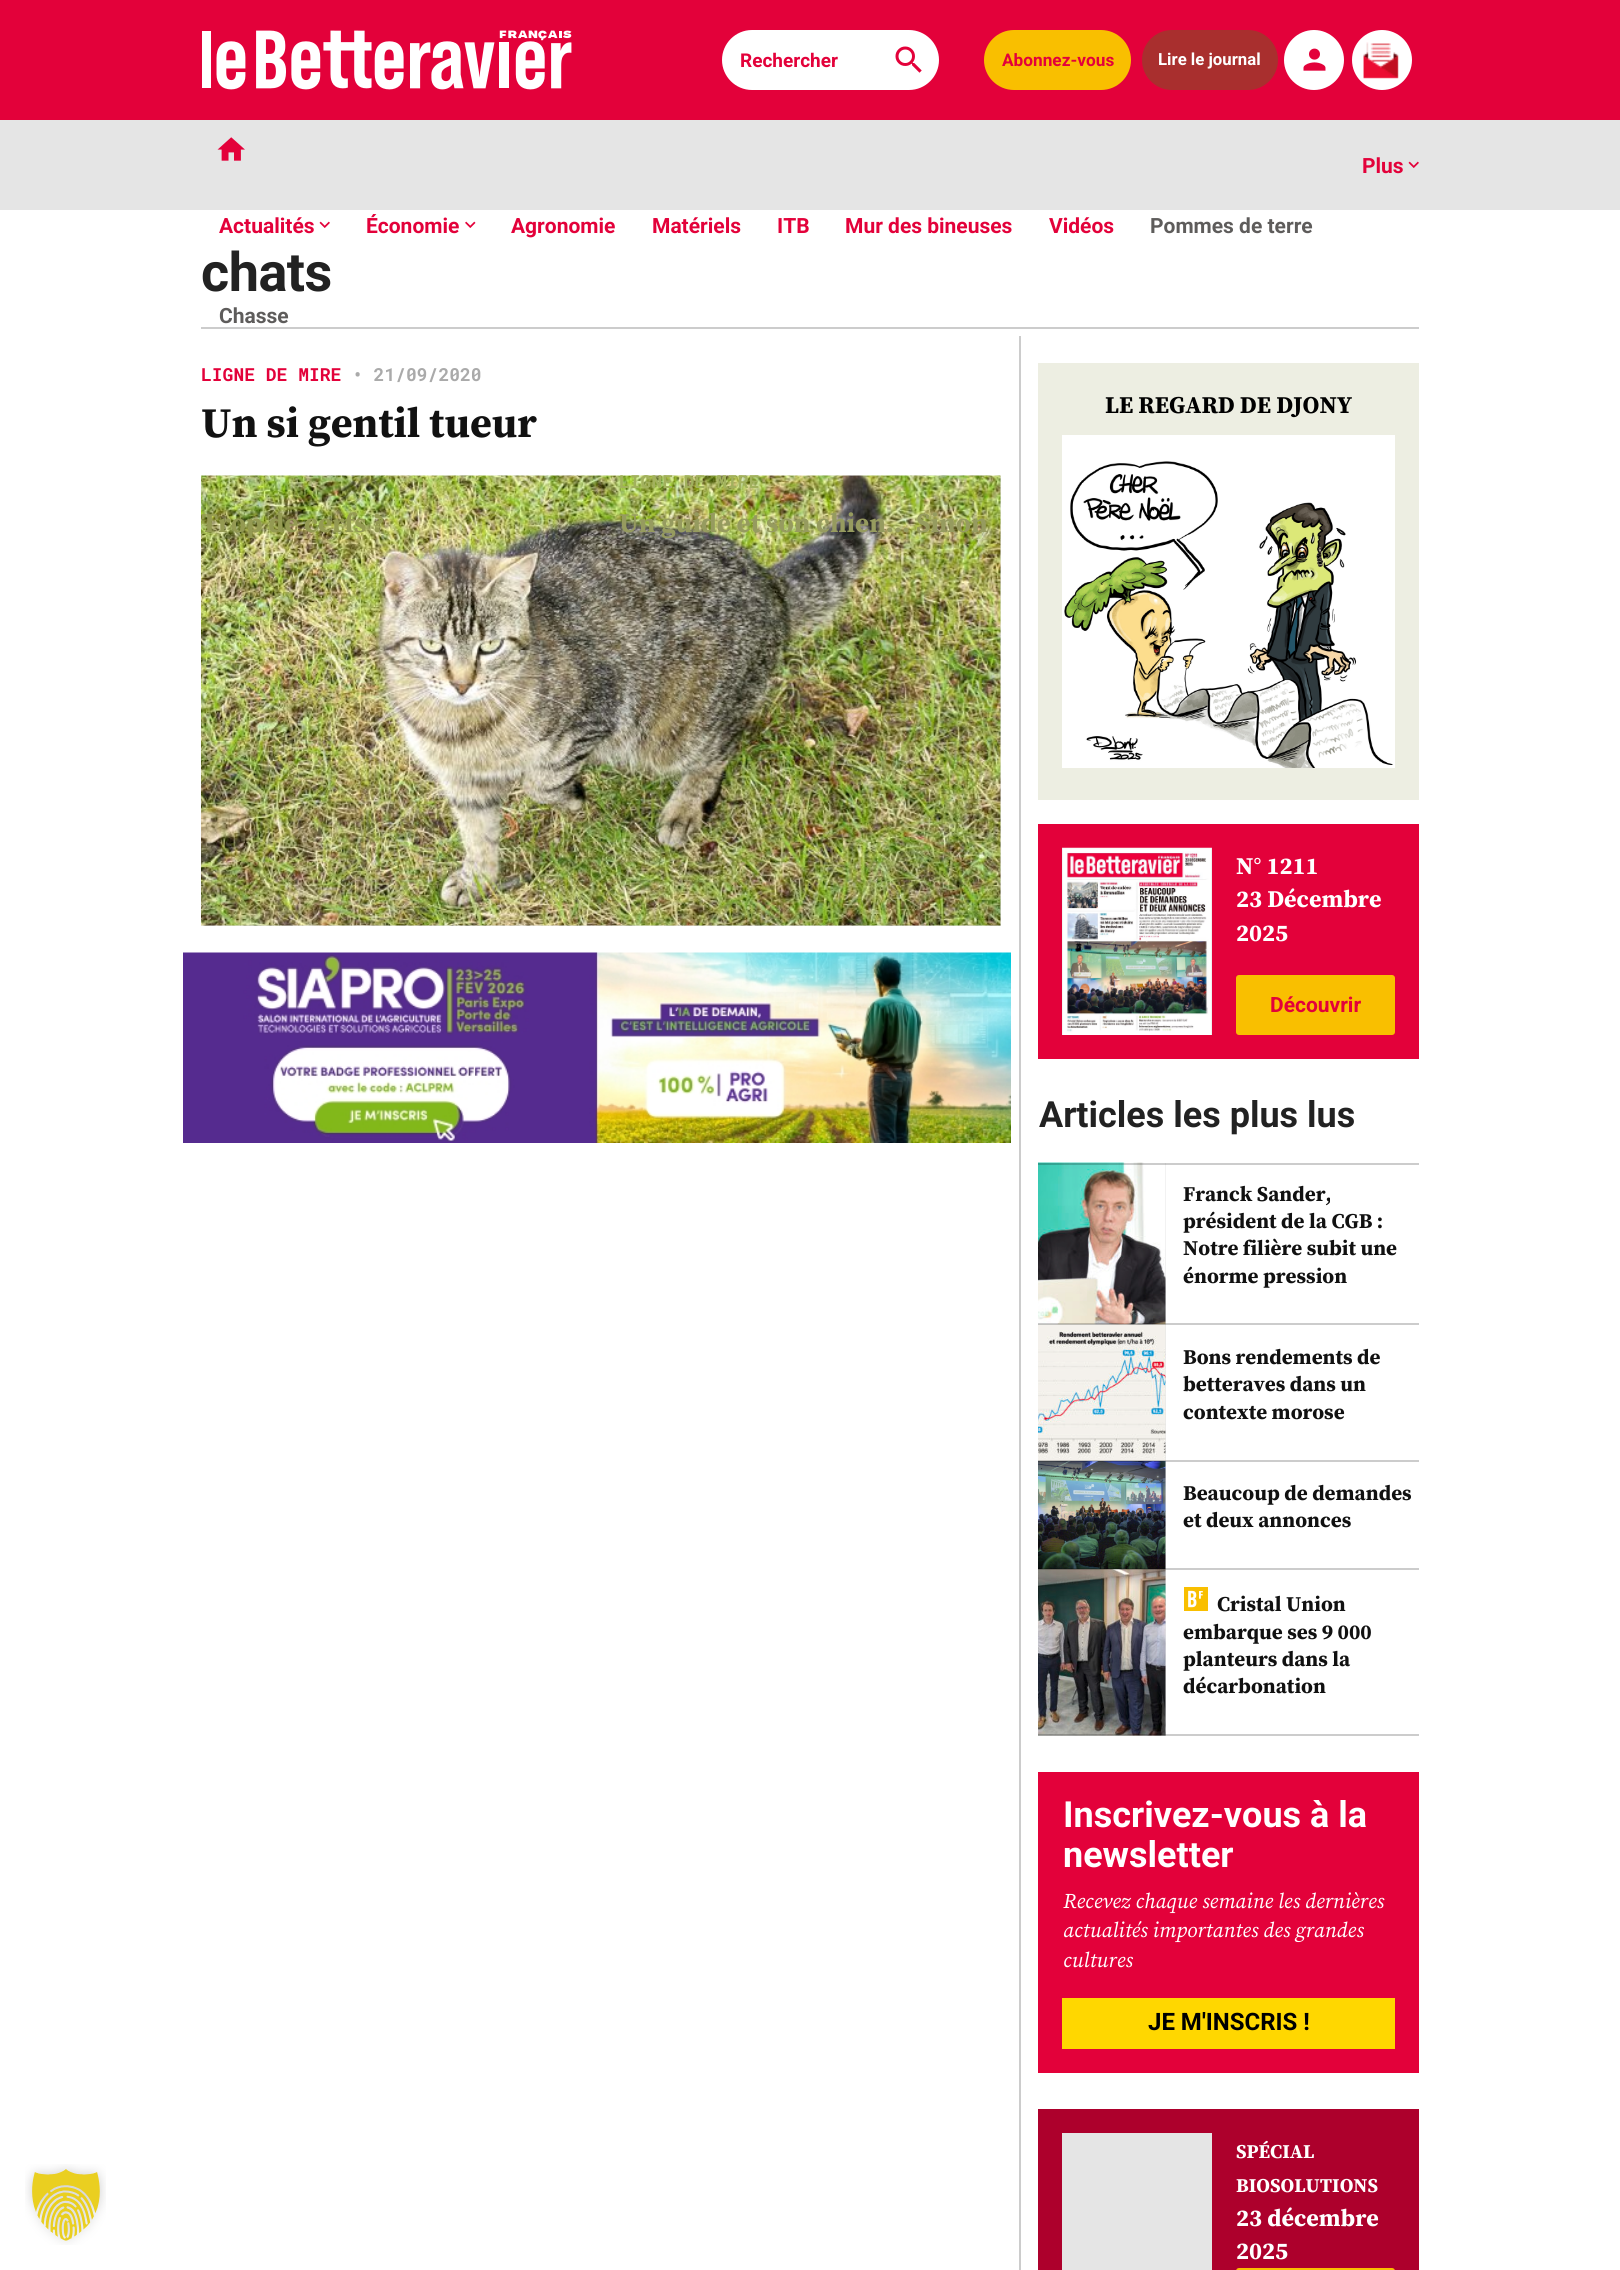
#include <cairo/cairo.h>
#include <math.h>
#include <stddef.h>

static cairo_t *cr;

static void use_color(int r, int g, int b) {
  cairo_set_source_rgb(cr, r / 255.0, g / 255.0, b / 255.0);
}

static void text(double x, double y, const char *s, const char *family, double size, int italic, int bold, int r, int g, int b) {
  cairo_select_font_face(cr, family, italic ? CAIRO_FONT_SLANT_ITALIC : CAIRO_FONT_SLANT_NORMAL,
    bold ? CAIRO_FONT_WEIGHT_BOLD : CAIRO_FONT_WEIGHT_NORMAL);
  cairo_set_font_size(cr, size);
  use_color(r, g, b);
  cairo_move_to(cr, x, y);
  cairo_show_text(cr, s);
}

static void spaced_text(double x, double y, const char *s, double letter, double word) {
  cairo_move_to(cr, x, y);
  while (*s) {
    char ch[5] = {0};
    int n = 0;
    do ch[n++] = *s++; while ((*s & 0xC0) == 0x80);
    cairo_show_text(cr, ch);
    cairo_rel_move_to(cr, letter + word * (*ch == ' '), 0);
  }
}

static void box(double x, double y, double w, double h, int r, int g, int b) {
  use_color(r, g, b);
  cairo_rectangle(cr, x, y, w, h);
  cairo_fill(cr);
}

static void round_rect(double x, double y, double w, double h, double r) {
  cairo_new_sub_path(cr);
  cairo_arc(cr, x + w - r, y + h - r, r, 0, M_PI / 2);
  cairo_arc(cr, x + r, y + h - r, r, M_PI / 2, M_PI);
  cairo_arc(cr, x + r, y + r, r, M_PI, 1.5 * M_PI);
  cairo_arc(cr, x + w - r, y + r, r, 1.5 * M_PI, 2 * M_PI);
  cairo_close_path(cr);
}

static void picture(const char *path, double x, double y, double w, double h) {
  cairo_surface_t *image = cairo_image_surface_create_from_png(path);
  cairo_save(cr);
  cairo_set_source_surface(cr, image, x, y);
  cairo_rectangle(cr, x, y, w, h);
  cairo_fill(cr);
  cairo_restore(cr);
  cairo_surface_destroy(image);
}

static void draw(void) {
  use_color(255, 255, 255);
  cairo_paint(cr);
  picture("img_01.png", 25, 2164, 81, 81);
  box(0, 0, 1620, 120, 227, 1, 58);
  picture("img_02.png", 202, 30, 370, 60);
  use_color(255, 255, 255);
  cairo_new_path(cr);
  cairo_move_to(cr, 752, 30);
  cairo_line_to(cr, 879, 30);
  cairo_line_to(cr, 879, 90);
  cairo_line_to(cr, 752, 90);
  cairo_curve_to(cr, 735.5, 90, 722, 76.5, 722, 60);
  cairo_curve_to(cr, 722, 43.5, 735.5, 30, 752, 30);
  cairo_close_path(cr);
  cairo_fill(cr);
  cairo_new_path(cr);
  cairo_move_to(cr, 879, 30);
  cairo_line_to(cr, 909, 30);
  cairo_curve_to(cr, 925.5, 30, 939, 43.5, 939, 60);
  cairo_curve_to(cr, 939, 76.5, 925.5, 90, 909, 90);
  cairo_line_to(cr, 879, 90);
  cairo_close_path(cr);
  cairo_fill(cr);
  picture("img_03.png", 895, 46, 27, 27);
  use_color(249, 191, 0);
  round_rect(984, 30, 147, 60, 30);
  cairo_fill(cr);
  use_color(169, 47, 46);
  round_rect(1142, 30, 136, 60, 30);
  cairo_fill(cr);
  use_color(255, 255, 255);
  cairo_arc(cr, 1314, 60, 30, 0, 2 * M_PI);
  cairo_fill(cr);
  picture("img_04.png", 1303, 48, 23, 23);
  cairo_arc(cr, 1382, 60, 30, 0, 2 * M_PI);
  cairo_fill(cr);
  picture("img_05.png", 1363, 42, 36, 37);
  box(0, 120, 1620, 90, 229, 229, 229);
  picture("img_06.png", 1408, 161, 11, 7);
  picture("img_07.png", 217, 137, 28, 24);
  picture("img_08.png", 319, 221, 11, 7);
  picture("img_09.png", 465, 221, 11, 7);
  box(201, 327, 1218, 2, 204, 204, 204);
  box(201, 476, 800, 450, 229, 229, 229);
  picture("img_10.png", 201, 475, 800, 451);
  picture("img_11.png", 183, 952, 828, 191);
  box(1019, 336, 2, 1934, 204, 204, 204);
  box(1038, 363, 381, 437, 237, 238, 226);
  picture("img_12.png", 1062, 435, 333, 333);
  box(1038, 824, 381, 235, 227, 1, 58);
  picture("img_13.png", 1062, 847, 150, 188);
  use_color(249, 191, 0);
  round_rect(1236, 975, 159, 60, 3);
  cairo_fill(cr);
  box(1038, 1163, 128, 162, 229, 229, 229);
  picture("img_14.png", 1038, 1162, 128, 163);
  cairo_set_source_rgba(cr, 0, 0, 0, 0.2);
  cairo_rectangle(cr, 1038, 1163, 381, 2);
  cairo_fill(cr);
  box(1165, 1325, 1, 244, 229, 229, 229);
  picture("img_15.png", 1038, 1324, 128, 137);
  cairo_set_source_rgba(cr, 0, 0, 0, 0.2);
  cairo_rectangle(cr, 1038, 1323, 381, 2);
  cairo_fill(cr);
  picture("img_16.png", 1038, 1461, 128, 108);
  cairo_rectangle(cr, 1038, 1460, 381, 2);
  cairo_fill(cr);
  box(1038, 1569, 128, 167, 229, 229, 229);
  picture("img_17.png", 1038, 1569, 128, 167);
  cairo_set_source_rgba(cr, 0, 0, 0, 0.2);
  cairo_rectangle(cr, 1038, 1568, 381, 2);
  cairo_fill(cr);
  picture("img_18.png", 1184, 1587, 24, 24);
  cairo_rectangle(cr, 1038, 1734, 381, 2);
  cairo_fill(cr);
  box(1038, 1772, 381, 301, 227, 1, 58);
  box(1062, 1998, 333, 51, 255, 215, 0);
  box(1038, 2109, 381, 161, 173, 0, 44);
  box(1062, 2133, 150, 137, 229, 229, 229);
  use_color(249, 191, 0);
  round_rect(1236, 2268, 159, 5, 3);
  cairo_fill(cr);
  text(740, 67, "Rechercher", "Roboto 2", 19, 0, 1, 227, 1, 58);
  text(1002, 66, "Abonnez-vous", "Roboto 2", 17.25, 0, 1, 227, 1, 58);
  text(1158, 65, "Lire le journal", "Roboto 2", 16.75, 0, 1, 255, 255, 255);
  text(1362, 173, "Plus", "Roboto", 21, 0, 1, 227, 1, 58);
  text(219, 233, "Actualités", "Roboto", 21, 0, 1, 227, 1, 58);
  text(366, 233, "Économie", "Roboto", 21, 0, 1, 227, 1, 58);
  text(511, 233, "Agronomie", "Roboto", 21, 0, 1, 227, 1, 58);
  text(652, 233, "Matériels", "Roboto", 21, 0, 1, 227, 1, 58);
  text(777, 233, "ITB", "Roboto", 21, 0, 1, 227, 1, 58);
  text(845, 233, "Mur des bineuses", "Roboto", 21, 0, 1, 227, 1, 58);
  text(1049, 233, "Vidéos", "Roboto", 21, 0, 1, 227, 1, 58);
  text(1150, 233, "Pommes de terre", "Roboto", 21, 0, 1, 94, 92, 91);
  text(219, 323, "Chasse", "Roboto", 21, 0, 1, 94, 92, 91);
  text(201, 532, "Trop de cerfs ?", "Source Serif Pro", 27, 0, 1, 148, 154, 82);
  text(619, 488, "LIGNE DE MIRE", "Roboto Mono", 18, 0, 1, 162, 177, 93);
  text(619, 532, "Un guide et son chien… Sinon", "Source Serif Pro", 27, 0, 1, 150, 155, 95);
  cairo_select_font_face(cr, "Roboto", CAIRO_FONT_SLANT_NORMAL, CAIRO_FONT_WEIGHT_BOLD);
  cairo_set_font_size(cr, 54);
  use_color(34, 34, 34);
  spaced_text(201, 291, "chats", -0.5, 0);
  text(201, 381, "LIGNE DE MIRE", "Roboto Mono", 18, 0, 1, 227, 1, 58);
  text(352, 381, "• 21/09/2020", "Roboto Mono", 18, 0, 1, 170, 170, 170);
  text(201, 437, "Un si gentil tueur", "Source Serif Pro", 42, 0, 1, 17, 17, 17);
  text(1105, 413, "LE REGARD DE DJONY", "Source Serif Pro", 24, 0, 1, 0, 0, 0);
  text(1236, 874, "N° 1211", "Source Serif Pro", 24, 0, 1, 255, 255, 255);
  text(1236, 907, "23 Décembre", "Source Serif Pro", 24, 0, 1, 255, 255, 255);
  text(1236, 941, "2025", "Source Serif Pro", 24, 0, 1, 255, 255, 255);
  text(1270, 1012, "Découvrir", "Roboto 2", 21, 0, 1, 227, 1, 58);
  text(1039, 1127, "Articles les plus lus", "Roboto", 36, 0, 1, 34, 34, 34);
  text(1183, 1201, "Franck Sander,", "Source Serif Pro", 21, 0, 1, 17, 17, 17);
  text(1183, 1228, "président de la CGB :", "Source Serif Pro", 21, 0, 1, 17, 17, 17);
  text(1183, 1255, "Notre filière subit une", "Source Serif Pro", 21, 0, 1, 17, 17, 17);
  text(1183, 1283, "énorme pression", "Source Serif Pro", 21, 0, 1, 17, 17, 17);
  text(1183, 1364, "Bons rendements de", "Source Serif Pro", 21, 0, 1, 17, 17, 17);
  text(1183, 1391, "betteraves dans un", "Source Serif Pro", 21, 0, 1, 17, 17, 17);
  text(1183, 1419, "contexte morose", "Source Serif Pro", 21, 0, 1, 17, 17, 17);
  text(1183, 1500, "Beaucoup de demandes", "Source Serif Pro", 21, 0, 1, 17, 17, 17);
  text(1183, 1527, "et deux annonces", "Source Serif Pro", 21, 0, 1, 17, 17, 17);
  text(1217, 1611, "Cristal Union", "Source Serif Pro", 21, 0, 1, 17, 17, 17);
  text(1183, 1639, "embarque ses 9 000", "Source Serif Pro", 21, 0, 1, 17, 17, 17);
  text(1183, 1666, "planteurs dans la", "Source Serif Pro", 21, 0, 1, 17, 17, 17);
  text(1183, 1693, "décarbonation", "Source Serif Pro", 21, 0, 1, 17, 17, 17);
  text(1063, 1827, "Inscrivez-vous à la", "Roboto", 36, 0, 1, 255, 255, 255);
  text(1063, 1867, "newsletter", "Roboto", 36, 0, 1, 255, 255, 255);
  text(1063, 1908, "Recevez chaque semaine les dernières", "Source Serif Pro", 21, 1, 0, 255, 255, 255);
  text(1063, 1937, "actualités importantes des grandes", "Source Serif Pro", 21, 1, 0, 255, 255, 255);
  text(1063, 1967, "cultures", "Source Serif Pro", 21, 1, 0, 255, 255, 255);
  text(1148, 2030, "JE M'INSCRIS !", "Roboto 2", 24, 0, 1, 0, 0, 0);
  text(1236, 2158, "SPÉCIAL", "Source Serif Pro", 19.5, 0, 1, 255, 255, 255);
  text(1236, 2192, "BIOSOLUTIONS", "Source Serif Pro", 19.5, 0, 1, 255, 255, 255);
  text(1236, 2226, "23 décembre", "Source Serif Pro", 24, 0, 1, 255, 255, 255);
  text(1236, 2259, "2025", "Source Serif Pro", 24, 0, 1, 255, 255, 255);
}

int main(void) {
  cairo_surface_t *surface = cairo_image_surface_create(CAIRO_FORMAT_RGB24, 1620, 2270);
  cr = cairo_create(surface);
  cairo_font_options_t *options = cairo_font_options_create();
  cairo_font_options_set_hint_metrics(options, CAIRO_HINT_METRICS_OFF);
  cairo_font_options_set_hint_style(options, CAIRO_HINT_STYLE_NONE);
  cairo_set_font_options(cr, options);
  cairo_set_miter_limit(cr, 4);
  draw();
  cairo_surface_write_to_png(surface, "out.png");
  cairo_font_options_destroy(options);
  cairo_destroy(cr);
  cairo_surface_destroy(surface);
  return 0;
}
